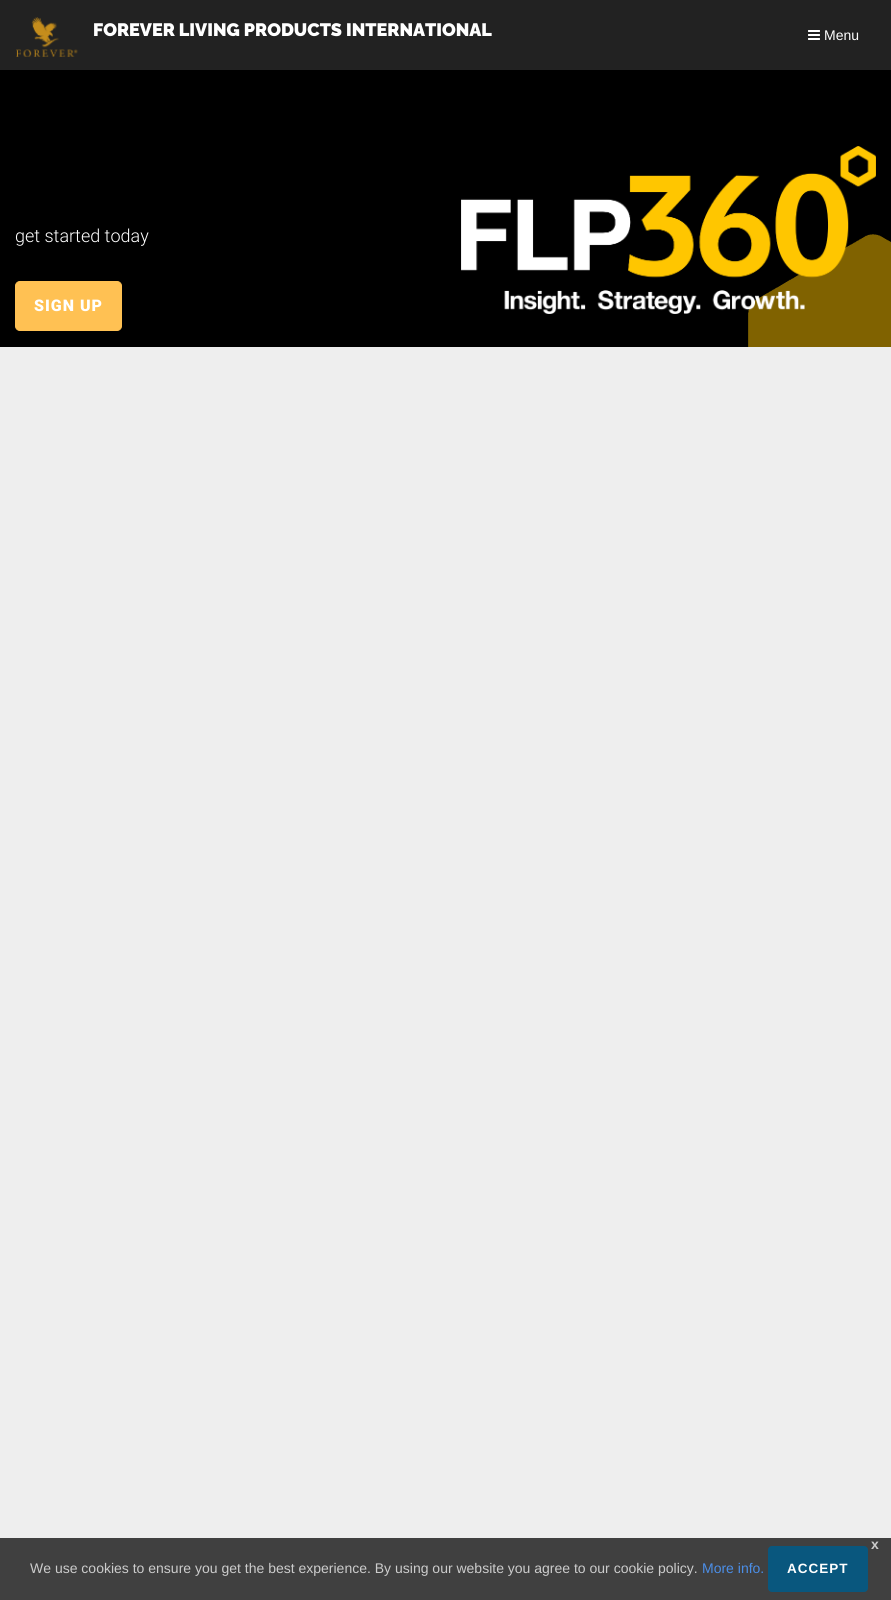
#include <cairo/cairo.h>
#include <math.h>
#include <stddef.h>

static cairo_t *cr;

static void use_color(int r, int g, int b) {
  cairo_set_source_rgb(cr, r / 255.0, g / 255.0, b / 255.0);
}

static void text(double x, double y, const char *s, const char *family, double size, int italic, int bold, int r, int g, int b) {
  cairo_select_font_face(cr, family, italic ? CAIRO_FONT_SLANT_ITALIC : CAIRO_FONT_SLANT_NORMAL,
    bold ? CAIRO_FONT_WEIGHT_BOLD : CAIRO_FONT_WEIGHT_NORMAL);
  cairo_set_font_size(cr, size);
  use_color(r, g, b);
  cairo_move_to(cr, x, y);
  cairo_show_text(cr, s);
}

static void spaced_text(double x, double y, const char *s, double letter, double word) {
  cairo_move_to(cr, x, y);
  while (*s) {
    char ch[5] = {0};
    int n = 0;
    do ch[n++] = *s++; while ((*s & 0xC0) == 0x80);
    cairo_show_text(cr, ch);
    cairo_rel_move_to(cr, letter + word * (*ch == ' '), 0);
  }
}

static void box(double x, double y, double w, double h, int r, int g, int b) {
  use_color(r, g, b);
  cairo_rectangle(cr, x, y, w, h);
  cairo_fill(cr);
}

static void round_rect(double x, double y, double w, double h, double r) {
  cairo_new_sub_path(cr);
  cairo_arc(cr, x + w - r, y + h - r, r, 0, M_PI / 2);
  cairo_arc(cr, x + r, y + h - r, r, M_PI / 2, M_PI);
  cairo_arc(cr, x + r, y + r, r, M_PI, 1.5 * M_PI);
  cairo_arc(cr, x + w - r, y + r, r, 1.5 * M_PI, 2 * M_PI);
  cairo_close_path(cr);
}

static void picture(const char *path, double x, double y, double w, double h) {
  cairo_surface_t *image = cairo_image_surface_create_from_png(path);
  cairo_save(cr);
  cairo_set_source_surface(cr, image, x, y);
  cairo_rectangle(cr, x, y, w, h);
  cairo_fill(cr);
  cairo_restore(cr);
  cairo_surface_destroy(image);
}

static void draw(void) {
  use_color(238, 238, 238);
  cairo_paint(cr);
  box(0, 0, 891, 70, 34, 34, 34);
  picture("img_01.png", 16, 17, 62, 40);
  picture("img_02.png", 808, 30, 12, 10);
  box(0, 70, 891, 277, 0, 0, 0);
  picture("img_03.png", 748, 234, 143, 113);
  use_color(255, 193, 83);
  round_rect(15.5, 281.5, 106, 49, 4.5);
  cairo_fill_preserve(cr);
  cairo_set_line_width(cr, 1);
  cairo_stroke(cr);
  picture("img_04.png", 461, 146, 415, 168);
  box(0, 1538, 891, 62, 64, 64, 64);
  use_color(9, 87, 126);
  round_rect(768.5, 1546.5, 99, 45, 3.5);
  cairo_fill_preserve(cr);
  cairo_stroke(cr);
  text(93, 36, "FOREVER LIVING PRODUCTS INTERNATIONAL", "Raleway Black", 18, 0, 0, 255, 255, 255);
  text(824, 40, "Menu", "Liberation Sans", 14, 0, 0, 255, 255, 255);
  text(15, 242, "get started today", "Roboto Light", 18, 0, 0, 255, 255, 255);
  cairo_select_font_face(cr, "Roboto Black", CAIRO_FONT_SLANT_NORMAL, CAIRO_FONT_WEIGHT_NORMAL);
  cairo_set_font_size(cr, 16);
  spaced_text(34, 311, "SIGN UP", 1, 0);
  text(871, 1549, "x", "Liberation Sans", 14, 0, 1, 204, 204, 204);
  text(30, 1573, "We use cookies to ensure you get the best experience. By using our website you agree to our cookie policy.", "Liberation Sans", 14, 0, 0, 204, 204, 204);
  text(702, 1573, "More info.", "Liberation Sans", 14, 0, 0, 75, 142, 231);
  cairo_select_font_face(cr, "Liberation Sans", CAIRO_FONT_SLANT_NORMAL, CAIRO_FONT_WEIGHT_BOLD);
  cairo_set_font_size(cr, 13.5);
  use_color(255, 255, 255);
  spaced_text(787, 1573, "ACCEPT", 1, 0);
}

int main(void) {
  cairo_surface_t *surface = cairo_image_surface_create(CAIRO_FORMAT_RGB24, 891, 1600);
  cr = cairo_create(surface);
  cairo_font_options_t *options = cairo_font_options_create();
  cairo_font_options_set_hint_metrics(options, CAIRO_HINT_METRICS_OFF);
  cairo_font_options_set_hint_style(options, CAIRO_HINT_STYLE_NONE);
  cairo_set_font_options(cr, options);
  cairo_set_miter_limit(cr, 4);
  draw();
  cairo_surface_write_to_png(surface, "out.png");
  cairo_font_options_destroy(options);
  cairo_destroy(cr);
  cairo_surface_destroy(surface);
  return 0;
}
